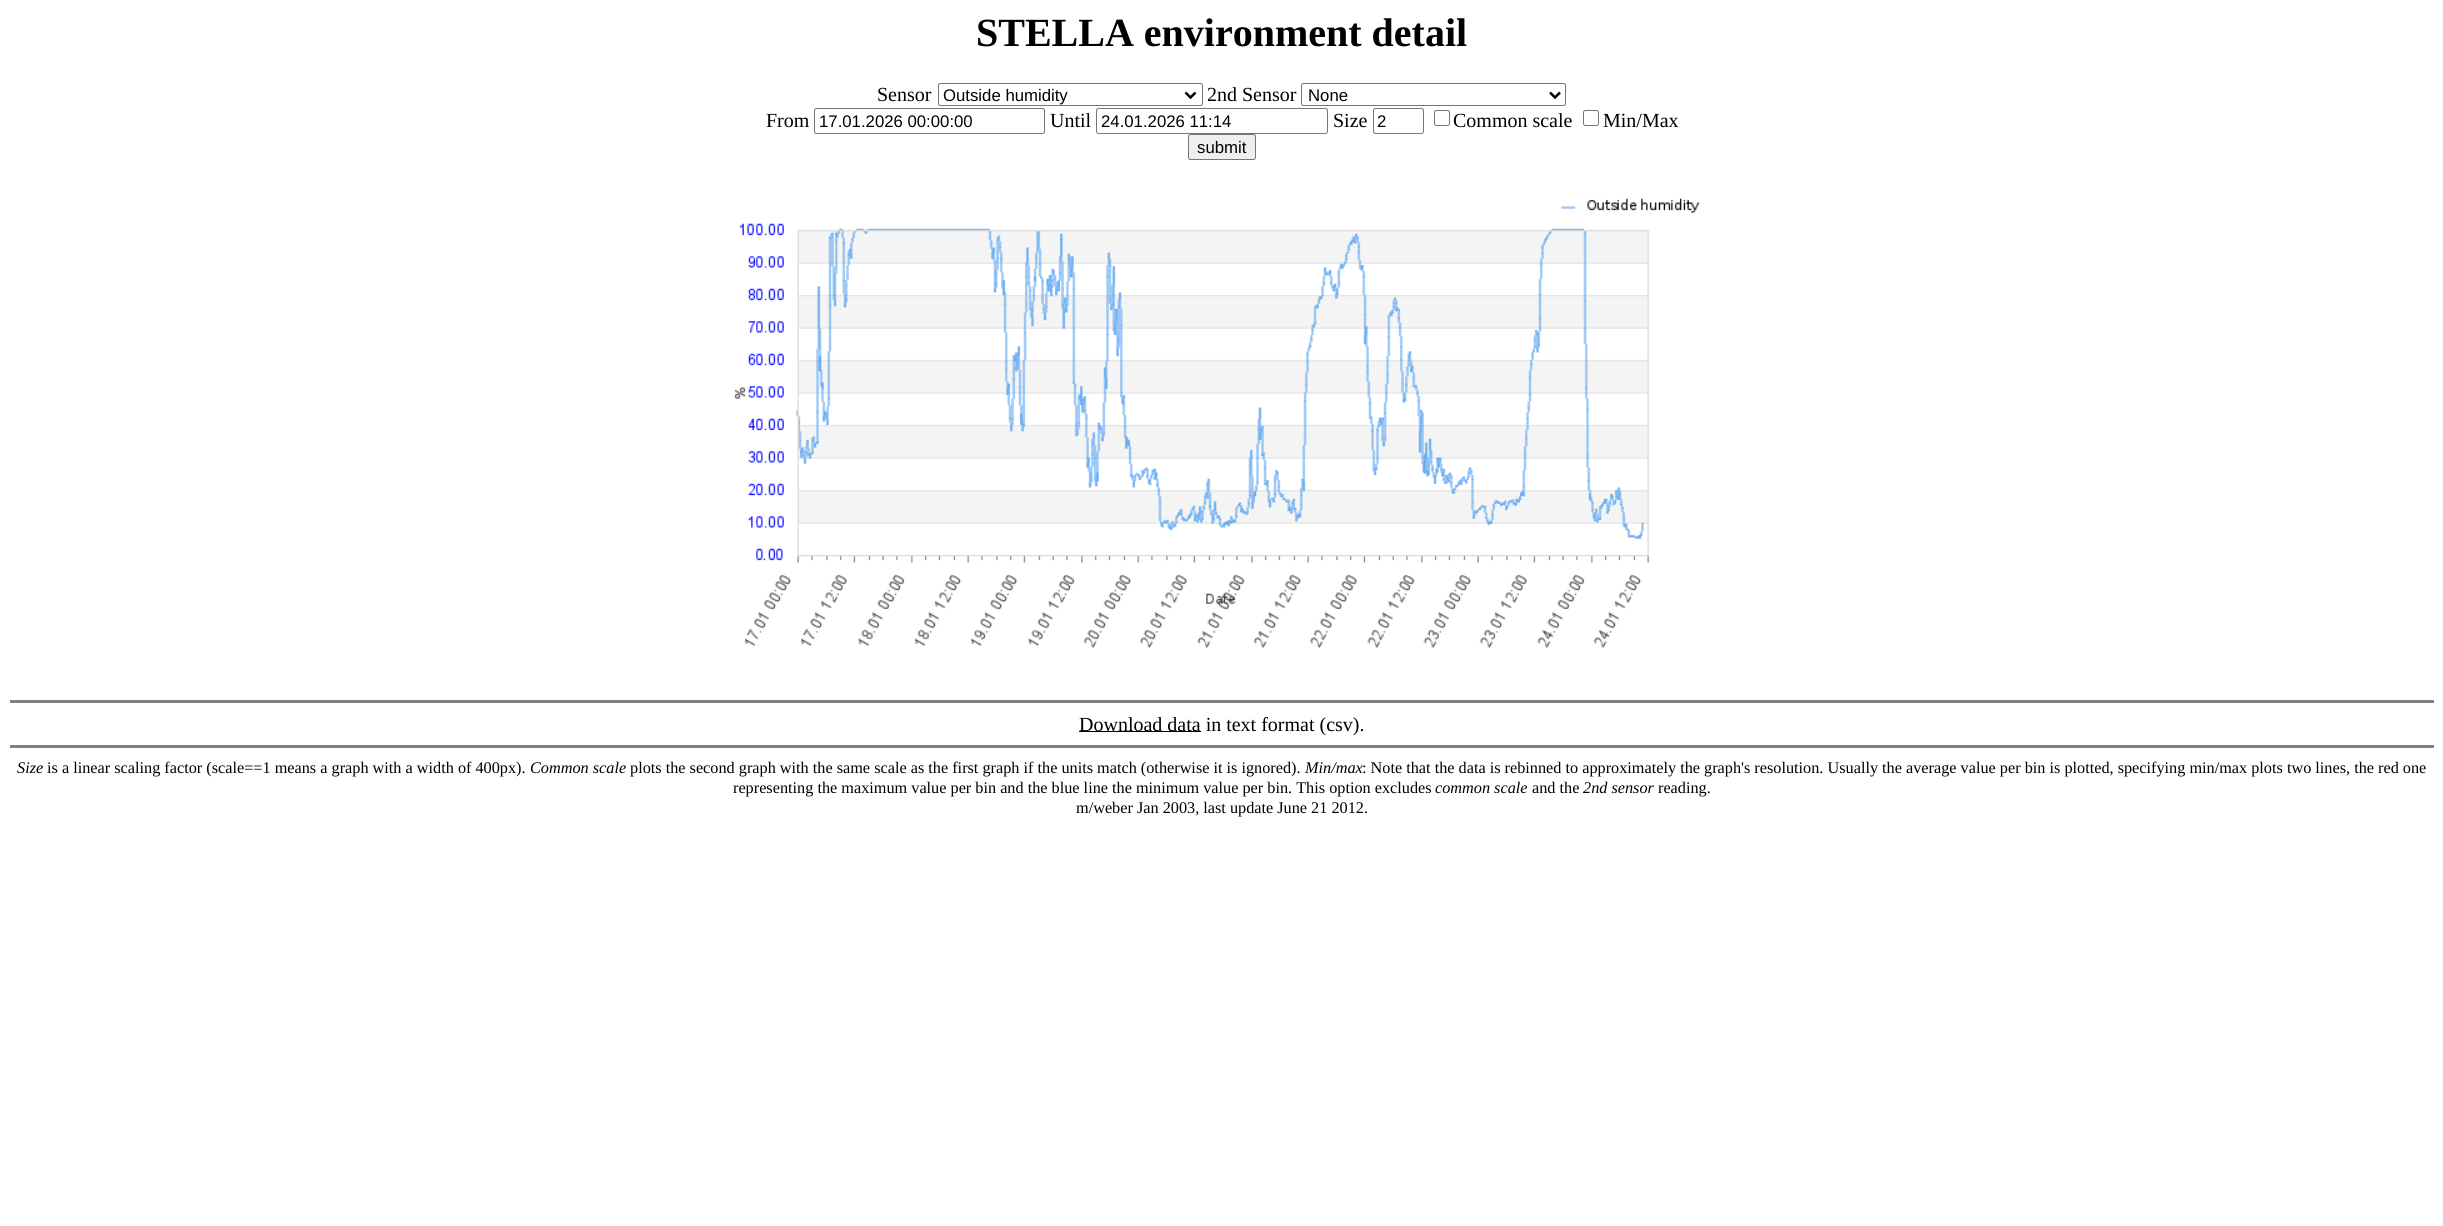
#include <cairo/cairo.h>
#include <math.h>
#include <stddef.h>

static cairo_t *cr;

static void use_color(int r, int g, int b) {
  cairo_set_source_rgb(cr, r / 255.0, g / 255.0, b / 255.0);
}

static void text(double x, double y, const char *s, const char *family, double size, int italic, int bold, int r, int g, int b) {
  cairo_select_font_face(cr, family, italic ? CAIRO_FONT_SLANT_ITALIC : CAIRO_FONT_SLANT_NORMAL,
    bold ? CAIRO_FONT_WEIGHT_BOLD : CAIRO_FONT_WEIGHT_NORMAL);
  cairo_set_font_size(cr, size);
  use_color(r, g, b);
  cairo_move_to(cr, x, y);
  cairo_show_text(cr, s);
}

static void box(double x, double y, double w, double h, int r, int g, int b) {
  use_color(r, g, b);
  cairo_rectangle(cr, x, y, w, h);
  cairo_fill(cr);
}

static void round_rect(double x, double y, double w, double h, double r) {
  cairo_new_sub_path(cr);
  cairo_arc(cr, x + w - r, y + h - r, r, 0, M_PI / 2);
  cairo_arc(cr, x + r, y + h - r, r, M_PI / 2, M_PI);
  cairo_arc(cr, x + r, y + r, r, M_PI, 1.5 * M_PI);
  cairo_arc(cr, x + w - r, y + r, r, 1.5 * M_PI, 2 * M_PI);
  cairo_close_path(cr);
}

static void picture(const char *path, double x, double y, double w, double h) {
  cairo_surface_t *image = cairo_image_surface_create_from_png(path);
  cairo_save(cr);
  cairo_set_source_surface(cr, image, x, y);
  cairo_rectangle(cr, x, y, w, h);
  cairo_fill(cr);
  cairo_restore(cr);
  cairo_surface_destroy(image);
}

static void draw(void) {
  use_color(255, 255, 255);
  cairo_paint(cr);
  round_rect(938.5, 83.5, 264, 22, 2);
  use_color(118, 118, 118);
  cairo_set_line_width(cr, 1);
  cairo_stroke(cr);
  cairo_new_path(cr);
  cairo_move_to(cr, 1185.5, 92.5);
  cairo_line_to(cr, 1190.5, 97.5);
  cairo_line_to(cr, 1195.5, 92.5);
  use_color(0, 0, 0);
  cairo_set_line_width(cr, 2.5);
  cairo_stroke(cr);
  round_rect(1301.5, 83.5, 264, 22, 2);
  use_color(118, 118, 118);
  cairo_set_line_width(cr, 1);
  cairo_stroke(cr);
  cairo_new_path(cr);
  cairo_move_to(cr, 1550, 92.5);
  cairo_line_to(cr, 1555, 97.5);
  cairo_line_to(cr, 1560, 92.5);
  use_color(0, 0, 0);
  cairo_set_line_width(cr, 2.5);
  cairo_stroke(cr);
  round_rect(814.5, 108.5, 230, 25, 2);
  use_color(118, 118, 118);
  cairo_set_line_width(cr, 1);
  cairo_stroke(cr);
  round_rect(1096.5, 108.5, 231, 25, 2);
  cairo_stroke(cr);
  round_rect(1373.5, 108.5, 50, 25, 2);
  cairo_stroke(cr);
  round_rect(1434.5, 110.5, 15, 15, 2);
  cairo_stroke(cr);
  round_rect(1583.5, 110.5, 15, 15, 2);
  cairo_stroke(cr);
  use_color(239, 239, 239);
  round_rect(1188.5, 134.5, 67, 25, 2);
  cairo_fill_preserve(cr);
  use_color(118, 118, 118);
  cairo_stroke(cr);
  picture("img_01.png", 734, 198, 966, 450);
  box(10, 700, 2424, 3, 128, 128, 128);
  box(1079, 731, 122, 1, 0, 0, 0);
  box(10, 745, 2424, 3, 128, 128, 128);
  text(976, 46, "STELLA environment detail", "Liberation Serif", 40, 0, 1, 0, 0, 0);
  text(877, 101, "Sensor", "Liberation Serif", 20, 0, 0, 0, 0, 0);
  text(943, 101, "Outside humidity", "Liberation Sans", 16.75, 0, 0, 0, 0, 0);
  text(1207, 101, "2nd Sensor", "Liberation Serif", 20, 0, 0, 0, 0, 0);
  text(1308, 101, "None", "Liberation Sans", 16.75, 0, 0, 0, 0, 0);
  text(766, 127, "From", "Liberation Serif", 20, 0, 0, 0, 0, 0);
  text(819, 127, "17.01.2026 00:00:00", "Liberation Sans", 16.75, 0, 0, 0, 0, 0);
  text(1050, 127, "Until", "Liberation Serif", 20, 0, 0, 0, 0, 0);
  text(1101, 127, "24.01.2026 11:14", "Liberation Sans", 16.75, 0, 0, 0, 0, 0);
  text(1333, 127, "Size", "Liberation Serif", 20, 0, 0, 0, 0, 0);
  text(1377, 127, "2", "Liberation Sans", 16.75, 0, 0, 0, 0, 0);
  text(1453, 127, "Common scale", "Liberation Serif", 20, 0, 0, 0, 0, 0);
  text(1603, 127, "Min/Max", "Liberation Serif", 20, 0, 0, 0, 0, 0);
  text(1197, 153, "submit", "Liberation Sans", 16.75, 0, 0, 0, 0, 0);
  text(1079, 731, "Download data in text format (csv).", "Liberation Serif", 20, 0, 0, 0, 0, 0);
  text(17, 773, "Size", "Liberation Serif", 16.25, 1, 0, 0, 0, 0);
  text(47, 773, "is a linear scaling factor (scale==1 means a graph with a width of 400px).", "Liberation Serif", 16.25, 0, 0, 0, 0, 0);
  text(530, 773, "Common scale", "Liberation Serif", 16.25, 1, 0, 0, 0, 0);
  text(630, 773, "plots the second graph with the same scale as the first graph if the units match (otherwise it is ignored).", "Liberation Serif", 16.25, 0, 0, 0, 0, 0);
  text(1305, 773, "Min/max", "Liberation Serif", 16.25, 1, 0, 0, 0, 0);
  text(1362, 773, ": Note that the data is rebinned to approximately the graph's resolution. Usually the average value per bin is plotted, specifying min/max plots two lines, the red one", "Liberation Serif", 16.25, 0, 0, 0, 0, 0);
  text(733, 793, "representing the maximum value per bin and the blue line the minimum value per bin. This option excludes", "Liberation Serif", 16.25, 0, 0, 0, 0, 0);
  text(1435, 793, "common scale", "Liberation Serif", 16.25, 1, 0, 0, 0, 0);
  text(1532, 793, "and the", "Liberation Serif", 16.25, 0, 0, 0, 0, 0);
  text(1583, 793, "2nd sensor", "Liberation Serif", 16.25, 1, 0, 0, 0, 0);
  text(1658, 793, "reading.", "Liberation Serif", 16.25, 0, 0, 0, 0, 0);
  text(1076, 813, "m/weber Jan 2003, last update June 21 2012.", "Liberation Serif", 16.25, 0, 0, 0, 0, 0);
}

int main(void) {
  cairo_surface_t *surface = cairo_image_surface_create(CAIRO_FORMAT_RGB24, 2443, 1226);
  cr = cairo_create(surface);
  cairo_font_options_t *options = cairo_font_options_create();
  cairo_font_options_set_hint_metrics(options, CAIRO_HINT_METRICS_OFF);
  cairo_font_options_set_hint_style(options, CAIRO_HINT_STYLE_NONE);
  cairo_set_font_options(cr, options);
  cairo_set_miter_limit(cr, 4);
  draw();
  cairo_surface_write_to_png(surface, "out.png");
  cairo_font_options_destroy(options);
  cairo_destroy(cr);
  cairo_surface_destroy(surface);
  return 0;
}
